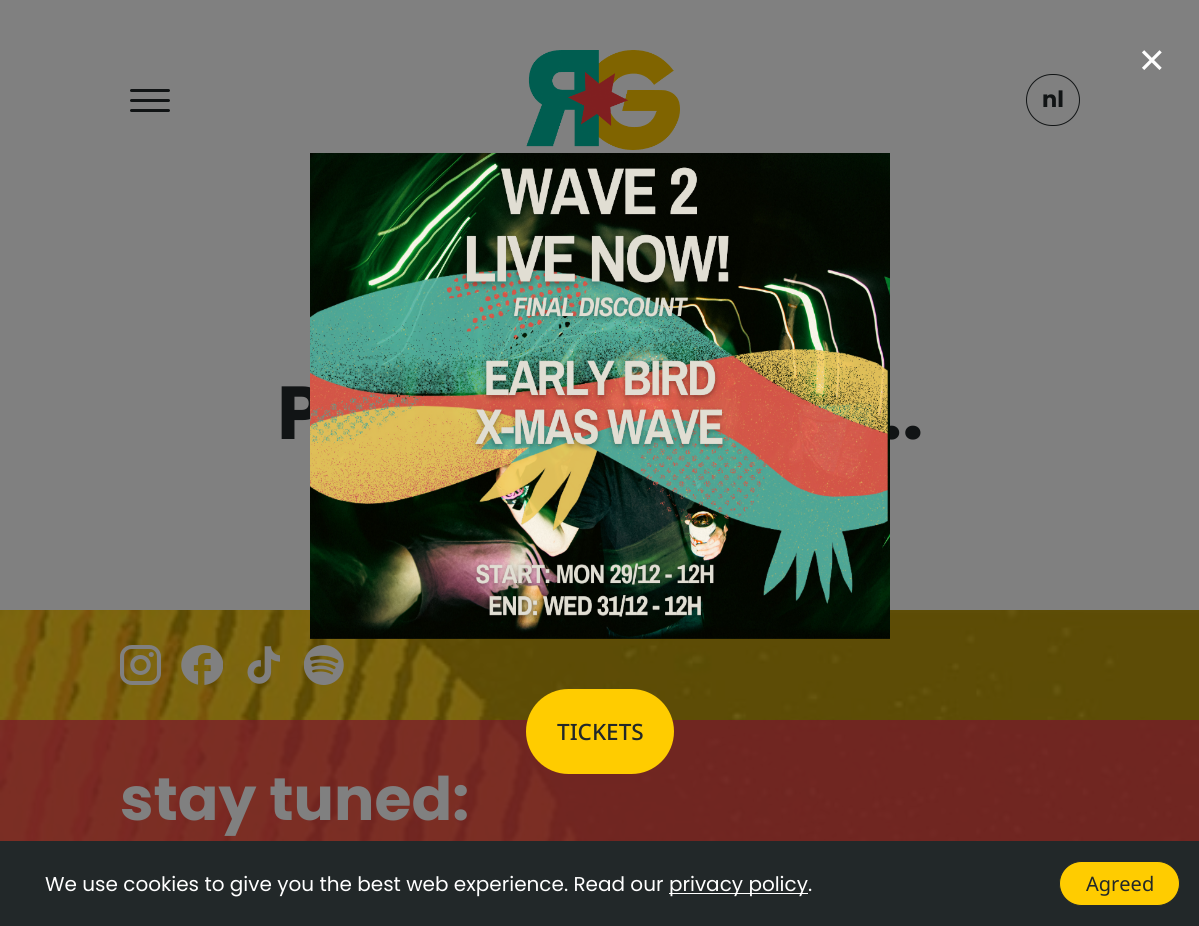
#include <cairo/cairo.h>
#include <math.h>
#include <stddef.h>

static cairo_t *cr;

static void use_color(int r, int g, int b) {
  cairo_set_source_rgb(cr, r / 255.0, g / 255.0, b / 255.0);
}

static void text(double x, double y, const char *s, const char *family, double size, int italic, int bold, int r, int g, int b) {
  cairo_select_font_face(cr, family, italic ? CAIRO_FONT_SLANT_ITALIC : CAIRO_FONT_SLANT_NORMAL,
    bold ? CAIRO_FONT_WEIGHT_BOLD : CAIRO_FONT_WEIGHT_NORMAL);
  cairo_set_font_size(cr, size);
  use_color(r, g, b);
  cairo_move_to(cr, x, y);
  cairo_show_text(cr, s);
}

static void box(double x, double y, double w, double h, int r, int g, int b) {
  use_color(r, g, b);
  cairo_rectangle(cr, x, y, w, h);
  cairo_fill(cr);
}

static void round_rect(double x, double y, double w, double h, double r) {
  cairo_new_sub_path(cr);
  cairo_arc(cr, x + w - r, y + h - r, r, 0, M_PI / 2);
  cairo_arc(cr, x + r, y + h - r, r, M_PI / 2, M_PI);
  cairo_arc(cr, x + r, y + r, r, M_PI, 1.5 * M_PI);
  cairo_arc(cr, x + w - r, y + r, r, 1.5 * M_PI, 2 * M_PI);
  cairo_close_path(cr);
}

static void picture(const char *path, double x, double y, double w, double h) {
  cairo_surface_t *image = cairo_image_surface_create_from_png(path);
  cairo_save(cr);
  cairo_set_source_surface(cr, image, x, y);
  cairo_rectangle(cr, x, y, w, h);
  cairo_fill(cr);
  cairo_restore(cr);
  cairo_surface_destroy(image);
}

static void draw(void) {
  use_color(128, 128, 128);
  cairo_paint(cr);
  picture("img_03.png", 0, 610, 1199, 231);
  cairo_set_source_rgba(cr, 0.502, 0.4, 0, 0.7);
  cairo_rectangle(cr, 0, 610, 1199, 110);
  cairo_fill(cr);
  cairo_set_source_rgba(cr, 0.486, 0.157, 0.137, 0.9);
  cairo_rectangle(cr, 0, 720, 1199, 121);
  cairo_fill(cr);
  use_color(255, 204, 0);
  round_rect(526, 689, 148, 85, 42.5);
  cairo_fill(cr);
  use_color(17, 20, 21);
  round_rect(130, 89, 40, 3, 1.5);
  cairo_fill(cr);
  round_rect(130, 99, 40, 3, 1.5);
  cairo_fill(cr);
  round_rect(130, 109, 40, 3, 1.5);
  cairo_fill(cr);
  picture("img_02.png", 526, 50, 154, 100);
  round_rect(1026.5, 74.5, 53, 51, 25.5);
  cairo_set_line_width(cr, 1);
  cairo_stroke(cr);
  picture("img_04.png", 120, 645, 41, 40);
  picture("img_05.png", 181, 645, 42, 40);
  picture("img_06.png", 247, 646, 33, 38);
  picture("img_07.png", 304, 645, 40, 40);
  box(0, 841, 1199, 85, 34, 40, 41);
  box(669, 893, 139, 1, 255, 255, 255);
  use_color(255, 204, 0);
  round_rect(1059.5, 861.5, 120, 44, 22);
  cairo_fill_preserve(cr);
  use_color(34, 40, 41);
  cairo_stroke(cr);
  text(1139, 76, "×", "Noto Sans", 45, 0, 0, 255, 255, 255);
  text(557, 740, "TICKETS", "Noto Sans Medium", 22.5, 0, 0, 34, 40, 41);
  text(1042, 107, "nl", "Poppins", 22.5, 0, 1, 17, 20, 21);
  text(277, 439, "P", "Poppins", 75, 0, 1, 17, 20, 21);
  text(881, 439, "..", "Poppins", 75, 0, 1, 17, 20, 21);
  picture("img_01.png", 310, 153, 580, 486);
  text(120, 820, "stay tuned:", "Poppins", 60, 0, 1, 128, 128, 128);
  text(45, 891, "We use cookies to give you the best web experience. Read our", "Poppins", 20, 0, 0, 255, 255, 255);
  text(669, 891, "privacy policy.", "Poppins", 20, 0, 0, 255, 255, 255);
  text(1086, 891, "Agreed", "Noto Sans", 20, 0, 0, 34, 40, 41);
}

int main(void) {
  cairo_surface_t *surface = cairo_image_surface_create(CAIRO_FORMAT_RGB24, 1199, 926);
  cr = cairo_create(surface);
  cairo_font_options_t *options = cairo_font_options_create();
  cairo_font_options_set_hint_metrics(options, CAIRO_HINT_METRICS_OFF);
  cairo_font_options_set_hint_style(options, CAIRO_HINT_STYLE_NONE);
  cairo_set_font_options(cr, options);
  cairo_set_miter_limit(cr, 4);
  draw();
  cairo_surface_write_to_png(surface, "out.png");
  cairo_font_options_destroy(options);
  cairo_destroy(cr);
  cairo_surface_destroy(surface);
  return 0;
}
